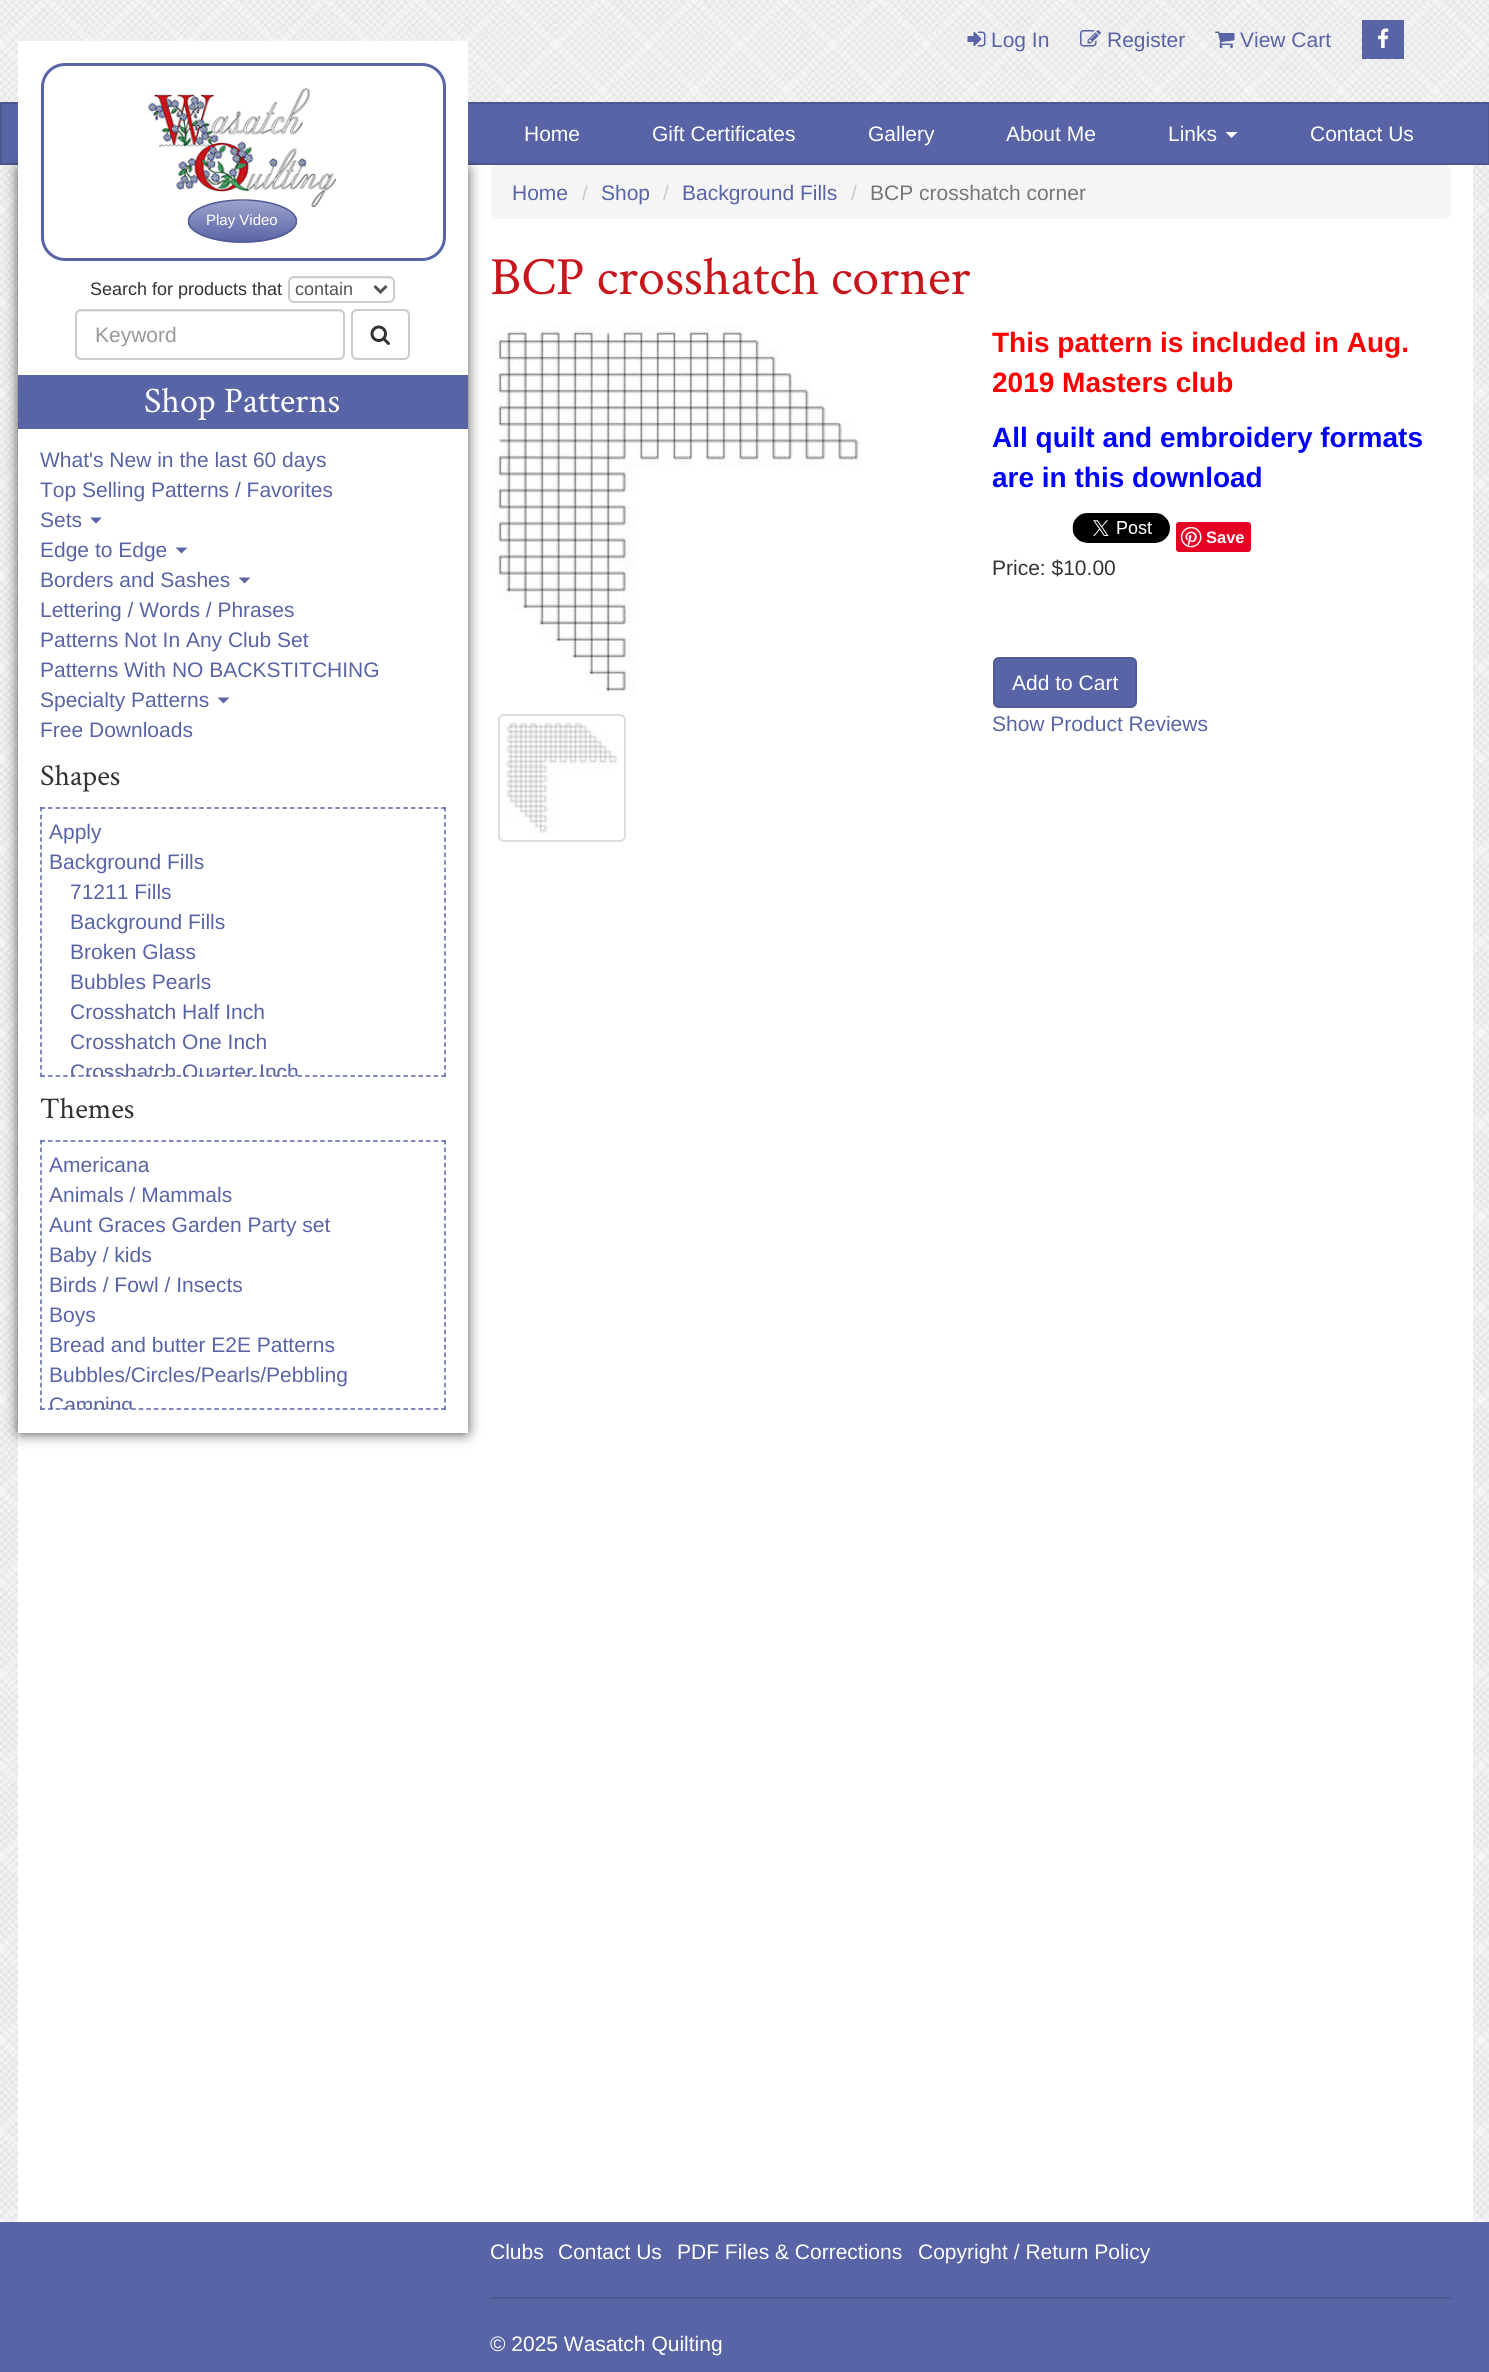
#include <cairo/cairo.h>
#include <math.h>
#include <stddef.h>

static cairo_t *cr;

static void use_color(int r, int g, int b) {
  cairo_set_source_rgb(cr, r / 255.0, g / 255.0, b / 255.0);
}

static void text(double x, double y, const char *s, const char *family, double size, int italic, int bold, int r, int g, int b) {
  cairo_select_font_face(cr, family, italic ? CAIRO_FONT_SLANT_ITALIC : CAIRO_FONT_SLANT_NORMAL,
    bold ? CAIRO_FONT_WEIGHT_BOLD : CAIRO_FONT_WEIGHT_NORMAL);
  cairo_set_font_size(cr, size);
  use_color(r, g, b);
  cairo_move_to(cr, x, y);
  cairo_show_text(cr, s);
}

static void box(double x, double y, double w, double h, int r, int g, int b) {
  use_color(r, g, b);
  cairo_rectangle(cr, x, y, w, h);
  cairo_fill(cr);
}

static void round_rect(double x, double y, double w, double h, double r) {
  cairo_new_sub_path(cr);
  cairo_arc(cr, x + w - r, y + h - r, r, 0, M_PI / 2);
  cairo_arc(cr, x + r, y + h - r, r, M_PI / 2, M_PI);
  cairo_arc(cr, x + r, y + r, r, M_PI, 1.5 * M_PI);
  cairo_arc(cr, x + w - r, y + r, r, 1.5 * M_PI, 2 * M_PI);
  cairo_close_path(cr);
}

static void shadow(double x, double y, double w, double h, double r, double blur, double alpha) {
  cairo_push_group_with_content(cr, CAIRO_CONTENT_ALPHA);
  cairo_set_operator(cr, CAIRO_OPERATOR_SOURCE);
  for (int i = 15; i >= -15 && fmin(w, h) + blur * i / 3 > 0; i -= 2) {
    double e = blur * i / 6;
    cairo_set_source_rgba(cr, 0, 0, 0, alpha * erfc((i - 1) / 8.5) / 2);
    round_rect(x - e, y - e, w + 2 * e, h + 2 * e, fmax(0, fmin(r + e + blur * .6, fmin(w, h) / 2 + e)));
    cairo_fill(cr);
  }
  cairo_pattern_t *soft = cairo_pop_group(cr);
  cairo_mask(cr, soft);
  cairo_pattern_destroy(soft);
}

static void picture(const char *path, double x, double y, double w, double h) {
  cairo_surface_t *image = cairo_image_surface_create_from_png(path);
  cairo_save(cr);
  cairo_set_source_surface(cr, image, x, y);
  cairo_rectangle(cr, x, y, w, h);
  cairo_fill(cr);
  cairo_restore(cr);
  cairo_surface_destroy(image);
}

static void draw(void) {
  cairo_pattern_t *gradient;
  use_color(89, 100, 166);
  cairo_paint(cr);
  picture("img_01.png", 0, 0, 1489, 102);
  picture("img_02.png", 967, 31, 19, 16);
  picture("img_03.png", 1080, 30, 21, 17);
  picture("img_04.png", 1215, 31, 20, 17);
  box(1362, 20, 42, 39, 89, 100, 166);
  picture("img_05.png", 1378, 28, 11, 20);
  cairo_rectangle(cr, 1, 103, 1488, 61);
  use_color(77, 87, 144);
  cairo_stroke(cr);
  box(0, 2221, 1489, 1, 255, 255, 255);
  picture("img_08.png", 0, 165, 1489, 2057);
  box(18, 165, 1455, 2057, 255, 255, 255);
  use_color(0, 0, 0);
  shadow(21, 170, 444, 1261, 0, 7.5, 1);
  box(18, 41, 450, 1392, 255, 255, 255);
  round_rect(42.5, 64.5, 402, 195, 22.5);
  use_color(89, 100, 166);
  cairo_set_line_width(cr, 3);
  cairo_stroke(cr);
  picture("img_06.png", 148, 88, 188, 119);
  gradient = cairo_pattern_create_linear(242, 201, 242, 242);
  cairo_pattern_add_color_stop_rgba(gradient, 0, 0.608, 0.635, 0.792, 1);
  cairo_pattern_add_color_stop_rgba(gradient, 1, 0.349, 0.392, 0.651, 1);
  cairo_set_source(cr, gradient);
  cairo_pattern_destroy(gradient);
  cairo_new_path(cr);
  cairo_move_to(cr, 188, 219);
  cairo_curve_to(cr, 190, 211, 204, 204, 222, 201);
  cairo_line_to(cr, 262, 201);
  cairo_curve_to(cr, 282, 204, 295, 211, 297, 220);
  cairo_line_to(cr, 297, 223);
  cairo_curve_to(cr, 295, 232, 280, 239, 259, 242);
  cairo_line_to(cr, 226, 242);
  cairo_curve_to(cr, 206, 239, 190, 232, 188, 224);
  cairo_close_path(cr);
  cairo_fill(cr);
  gradient = cairo_pattern_create_linear(242, 242, 242, 282);
  cairo_pattern_add_color_stop_rgba(gradient, 0, 0.608, 0.635, 0.792, 1);
  cairo_pattern_add_color_stop_rgba(gradient, 1, 0.349, 0.392, 0.651, 1);
  cairo_set_source(cr, gradient);
  cairo_pattern_destroy(gradient);
  cairo_new_path(cr);
  cairo_move_to(cr, 259, 242);
  cairo_curve_to(cr, 248, 243.5, 237, 243.5, 226, 242);
  cairo_close_path(cr);
  cairo_fill(cr);
  cairo_new_path(cr);
  cairo_move_to(cr, 242.5, 200);
  cairo_curve_to(cr, 272, 200, 296.5, 209.5, 296.5, 221);
  cairo_curve_to(cr, 296.5, 233, 272, 242, 242.5, 242);
  cairo_curve_to(cr, 212.5, 242, 188.5, 233, 188.5, 221);
  cairo_curve_to(cr, 188.5, 209.5, 212.5, 200, 242.5, 200);
  cairo_close_path(cr);
  use_color(80, 90, 149);
  cairo_set_line_width(cr, 1.5);
  cairo_stroke(cr);
  use_color(236, 236, 236);
  cairo_new_path(cr);
  cairo_move_to(cr, 294, 279);
  cairo_line_to(cr, 388, 279);
  cairo_curve_to(cr, 391, 279, 393, 281, 393, 284);
  cairo_curve_to(cr, 393, 274, 378, 278, 372, 278);
  cairo_line_to(cr, 310, 278);
  cairo_curve_to(cr, 305, 278, 290, 274, 290, 284);
  cairo_curve_to(cr, 290, 281, 292, 279, 294, 279);
  cairo_close_path(cr);
  cairo_fill(cr);
  round_rect(289, 277, 105, 25, 5);
  use_color(204, 204, 204);
  cairo_set_line_width(cr, 2);
  cairo_stroke(cr);
  cairo_new_path(cr);
  cairo_move_to(cr, 374.5, 286);
  cairo_line_to(cr, 380.5, 292);
  cairo_line_to(cr, 386.5, 286);
  use_color(85, 85, 85);
  cairo_set_line_width(cr, 3);
  cairo_stroke(cr);
  use_color(236, 236, 236);
  cairo_new_path(cr);
  cairo_move_to(cr, 81, 312);
  cairo_line_to(cr, 339, 312);
  cairo_curve_to(cr, 341, 312, 344, 314, 344, 316);
  cairo_curve_to(cr, 344, 313, 342, 311, 339, 311);
  cairo_line_to(cr, 82, 311);
  cairo_curve_to(cr, 80, 311, 79, 312, 78, 313);
  cairo_close_path(cr);
  cairo_fill(cr);
  round_rect(76, 310, 268, 49, 5);
  use_color(204, 204, 204);
  cairo_set_line_width(cr, 2);
  cairo_stroke(cr);
  round_rect(352, 310, 57, 49, 5);
  cairo_stroke(cr);
  picture("img_07.png", 370, 325, 20, 20);
  box(18, 375, 450, 54, 89, 100, 166);
  cairo_new_path(cr);
  cairo_move_to(cr, 90, 517.5);
  cairo_line_to(cr, 102, 517.5);
  cairo_line_to(cr, 96, 523.5);
  cairo_close_path(cr);
  cairo_fill(cr);
  cairo_new_path(cr);
  cairo_move_to(cr, 175.5, 547.5);
  cairo_line_to(cr, 187.5, 547.5);
  cairo_line_to(cr, 181.5, 553.5);
  cairo_close_path(cr);
  cairo_fill(cr);
  cairo_new_path(cr);
  cairo_move_to(cr, 238.5, 577.5);
  cairo_line_to(cr, 250.5, 577.5);
  cairo_line_to(cr, 244.5, 583.5);
  cairo_close_path(cr);
  cairo_fill(cr);
  cairo_new_path(cr);
  cairo_move_to(cr, 217.5, 697.5);
  cairo_line_to(cr, 229.5, 697.5);
  cairo_line_to(cr, 223.5, 703.5);
  cairo_close_path(cr);
  cairo_fill(cr);
  cairo_new_path(cr);
  cairo_move_to(cr, 40.5, 808);
  cairo_line_to(cr, 445.5, 808);
  cairo_set_line_width(cr, 1.5);
  cairo_set_dash(cr, (double[]){4.5, 3.06}, 2, 0);
  cairo_stroke(cr);
  cairo_new_path(cr);
  cairo_move_to(cr, 445, 807);
  cairo_line_to(cr, 445, 1077);
  cairo_set_dash(cr, (double[]){4.5, 3.09}, 2, 0);
  cairo_stroke(cr);
  cairo_new_path(cr);
  cairo_move_to(cr, 40.5, 1076);
  cairo_line_to(cr, 445.5, 1076);
  cairo_set_dash(cr, (double[]){4.5, 3.06}, 2, 0);
  cairo_stroke(cr);
  cairo_new_path(cr);
  cairo_move_to(cr, 41, 807);
  cairo_line_to(cr, 41, 1077);
  cairo_set_dash(cr, (double[]){4.5, 3.09}, 2, 0);
  cairo_stroke(cr);
  cairo_new_path(cr);
  cairo_move_to(cr, 40.5, 1141);
  cairo_line_to(cr, 445.5, 1141);
  cairo_set_dash(cr, (double[]){4.5, 3.06}, 2, 0);
  cairo_stroke(cr);
  cairo_new_path(cr);
  cairo_move_to(cr, 445, 1140);
  cairo_line_to(cr, 445, 1410);
  cairo_set_dash(cr, (double[]){4.5, 3.09}, 2, 0);
  cairo_stroke(cr);
  cairo_new_path(cr);
  cairo_move_to(cr, 40.5, 1409);
  cairo_line_to(cr, 445.5, 1409);
  cairo_set_dash(cr, (double[]){4.5, 3.06}, 2, 0);
  cairo_stroke(cr);
  cairo_new_path(cr);
  cairo_move_to(cr, 41, 1140);
  cairo_line_to(cr, 41, 1410);
  cairo_set_dash(cr, (double[]){4.5, 3.09}, 2, 0);
  cairo_stroke(cr);
  use_color(255, 255, 255);
  cairo_new_path(cr);
  cairo_move_to(cr, 1225.5, 132);
  cairo_line_to(cr, 1237.5, 132);
  cairo_line_to(cr, 1231.5, 138);
  cairo_close_path(cr);
  cairo_fill(cr);
  use_color(245, 245, 245);
  round_rect(491, 165, 960, 54, 6);
  cairo_fill(cr);
  picture("img_09.png", 490, 324, 372, 372);
  round_rect(499, 715, 126, 126, 5);
  use_color(221, 221, 221);
  cairo_set_line_width(cr, 2);
  cairo_set_dash(cr, NULL, 0, 0);
  cairo_stroke(cr);
  picture("img_10.png", 506, 722, 112, 112);
  picture("img_11.png", 1072, 513, 98, 30);
  use_color(230, 0, 35);
  round_rect(1176, 522, 75, 30, 3);
  cairo_fill(cr);
  picture("img_12.png", 1181, 527, 21, 21);
  use_color(89, 100, 166);
  round_rect(994, 658, 142, 49, 5);
  cairo_fill_preserve(cr);
  use_color(80, 90, 149);
  cairo_stroke(cr);
  box(491, 2297, 960, 2, 77, 87, 144);
  text(991, 47, "Log In", "Liberation Sans", 21, 0, 0, 89, 100, 166);
  text(1107, 47, "Register", "Liberation Sans", 21, 0, 0, 89, 100, 166);
  text(1240, 47, "View Cart", "Liberation Sans", 21, 0, 0, 89, 100, 166);
  text(206, 225, "Play Video", "Liberation Sans", 15, 0, 0, 255, 255, 255);
  text(90, 295, "Search for products that", "Liberation Sans", 18, 0, 0, 51, 51, 51);
  text(295, 295, "contain", "Liberation Sans", 18, 0, 0, 85, 85, 85);
  text(95, 342, "Keyword", "Liberation Sans", 21, 0, 0, 153, 153, 153);
  text(144, 412, "Shop Patterns", "Crimson Text", 36, 0, 0, 255, 255, 255);
  text(40, 467, "What's New in the last 60 days", "Liberation Sans", 21, 0, 0, 89, 100, 166);
  text(40, 497, "Top Selling Patterns / Favorites", "Liberation Sans", 21, 0, 0, 89, 100, 166);
  text(40, 527, "Sets", "Liberation Sans", 21, 0, 0, 89, 100, 166);
  text(40, 557, "Edge to Edge", "Liberation Sans", 21, 0, 0, 89, 100, 166);
  text(40, 587, "Borders and Sashes", "Liberation Sans", 21, 0, 0, 89, 100, 166);
  text(40, 617, "Lettering / Words / Phrases", "Liberation Sans", 21, 0, 0, 89, 100, 166);
  text(40, 647, "Patterns Not In Any Club Set", "Liberation Sans", 21, 0, 0, 89, 100, 166);
  text(40, 677, "Patterns With NO BACKSTITCHING", "Liberation Sans", 21, 0, 0, 89, 100, 166);
  text(40, 707, "Specialty Patterns", "Liberation Sans", 21, 0, 0, 89, 100, 166);
  text(40, 737, "Free Downloads", "Liberation Sans", 21, 0, 0, 89, 100, 166);
  text(40, 785, "Shapes", "Crimson Text", 30, 0, 0, 51, 51, 51);
  text(49, 839, "Apply", "Liberation Sans", 21, 0, 0, 89, 100, 166);
  text(49, 869, "Background Fills", "Liberation Sans", 21, 0, 0, 89, 100, 166);
  text(70, 899, "71211 Fills", "Liberation Sans", 21, 0, 0, 89, 100, 166);
  text(70, 929, "Background Fills", "Liberation Sans", 21, 0, 0, 89, 100, 166);
  text(70, 959, "Broken Glass", "Liberation Sans", 21, 0, 0, 89, 100, 166);
  text(70, 989, "Bubbles Pearls", "Liberation Sans", 21, 0, 0, 89, 100, 166);
  text(70, 1019, "Crosshatch Half Inch", "Liberation Sans", 21, 0, 0, 89, 100, 166);
  text(70, 1049, "Crosshatch One Inch", "Liberation Sans", 21, 0, 0, 89, 100, 166);
  cairo_save(cr);
  cairo_rectangle(cr, 42, 809, 402, 267);
  cairo_clip(cr);
  text(70, 1079, "Crosshatch Quarter Inch", "Liberation Sans", 21, 0, 0, 89, 100, 166);
  cairo_restore(cr);
  text(40, 1118, "Themes", "Crimson Text", 30, 0, 0, 51, 51, 51);
  text(49, 1172, "Americana", "Liberation Sans", 21, 0, 0, 89, 100, 166);
  text(49, 1202, "Animals / Mammals", "Liberation Sans", 21, 0, 0, 89, 100, 166);
  text(49, 1232, "Aunt Graces Garden Party set", "Liberation Sans", 21, 0, 0, 89, 100, 166);
  text(49, 1262, "Baby / kids", "Liberation Sans", 21, 0, 0, 89, 100, 166);
  text(49, 1292, "Birds / Fowl / Insects", "Liberation Sans", 21, 0, 0, 89, 100, 166);
  text(49, 1322, "Boys", "Liberation Sans", 21, 0, 0, 89, 100, 166);
  text(49, 1352, "Bread and butter E2E Patterns", "Liberation Sans", 21, 0, 0, 89, 100, 166);
  text(49, 1382, "Bubbles/Circles/Pearls/Pebbling", "Liberation Sans", 21, 0, 0, 89, 100, 166);
  cairo_save(cr);
  cairo_rectangle(cr, 42, 1142, 402, 267);
  cairo_clip(cr);
  text(49, 1412, "Camping", "Liberation Sans", 21, 0, 0, 89, 100, 166);
  cairo_restore(cr);
  text(524, 141, "Home", "Liberation Sans", 21, 0, 0, 255, 255, 255);
  text(652, 141, "Gift Certificates", "Liberation Sans", 21, 0, 0, 255, 255, 255);
  text(868, 141, "Gallery", "Liberation Sans", 21, 0, 0, 255, 255, 255);
  text(1006, 141, "About Me", "Liberation Sans", 21, 0, 0, 255, 255, 255);
  text(1168, 141, "Links", "Liberation Sans", 21, 0, 0, 255, 255, 255);
  text(1310, 141, "Contact Us", "Liberation Sans", 21, 0, 0, 255, 255, 255);
  text(512, 200, "Home", "Liberation Sans", 21, 0, 0, 89, 100, 166);
  text(582, 200, "/", "Liberation Sans", 21, 0, 0, 204, 204, 204);
  text(601, 200, "Shop", "Liberation Sans", 21, 0, 0, 89, 100, 166);
  text(663, 200, "/", "Liberation Sans", 21, 0, 0, 204, 204, 204);
  text(682, 200, "Background Fills", "Liberation Sans", 21, 0, 0, 89, 100, 166);
  text(851, 200, "/", "Liberation Sans", 21, 0, 0, 204, 204, 204);
  text(870, 200, "BCP crosshatch corner", "Liberation Sans", 21, 0, 0, 119, 119, 119);
  text(490, 294, "BCP crosshatch corner", "Crimson Text", 54, 0, 0, 200, 22, 29);
  text(992, 352, "This pattern is included in Aug.", "Liberation Sans", 28, 0, 1, 255, 0, 0);
  text(992, 392, "2019 Masters club", "Liberation Sans", 28, 0, 1, 255, 0, 0);
  text(992, 447, "All quilt and embroidery formats", "Liberation Sans", 28, 0, 1, 0, 0, 255);
  text(992, 487, "are in this download", "Liberation Sans", 28, 0, 1, 0, 0, 255);
  text(1206, 543, "Save", "Liberation Sans", 16.5, 0, 1, 255, 255, 255);
  text(992, 575, "Price: $10.00", "Liberation Sans", 21, 0, 0, 51, 51, 51);
  text(1012, 690, "Add to Cart", "Liberation Sans", 21, 0, 0, 255, 255, 255);
  text(992, 731, "Show Product Reviews", "Liberation Sans", 21, 0, 0, 89, 100, 166);
  text(490, 2259, "Clubs", "Liberation Sans", 21, 0, 0, 255, 255, 255);
  text(558, 2259, "Contact Us", "Liberation Sans", 21, 0, 0, 255, 255, 255);
  text(677, 2259, "PDF Files & Corrections", "Liberation Sans", 21, 0, 0, 255, 255, 255);
  text(918, 2259, "Copyright / Return Policy", "Liberation Sans", 21, 0, 0, 255, 255, 255);
  text(490, 2351, "© 2025 Wasatch Quilting", "Liberation Sans", 21, 0, 0, 255, 255, 255);
}

int main(void) {
  cairo_surface_t *surface = cairo_image_surface_create(CAIRO_FORMAT_RGB24, 1489, 2372);
  cr = cairo_create(surface);
  cairo_font_options_t *options = cairo_font_options_create();
  cairo_font_options_set_hint_metrics(options, CAIRO_HINT_METRICS_OFF);
  cairo_font_options_set_hint_style(options, CAIRO_HINT_STYLE_NONE);
  cairo_set_font_options(cr, options);
  cairo_set_miter_limit(cr, 4);
  draw();
  cairo_surface_write_to_png(surface, "out.png");
  cairo_font_options_destroy(options);
  cairo_destroy(cr);
  cairo_surface_destroy(surface);
  return 0;
}
